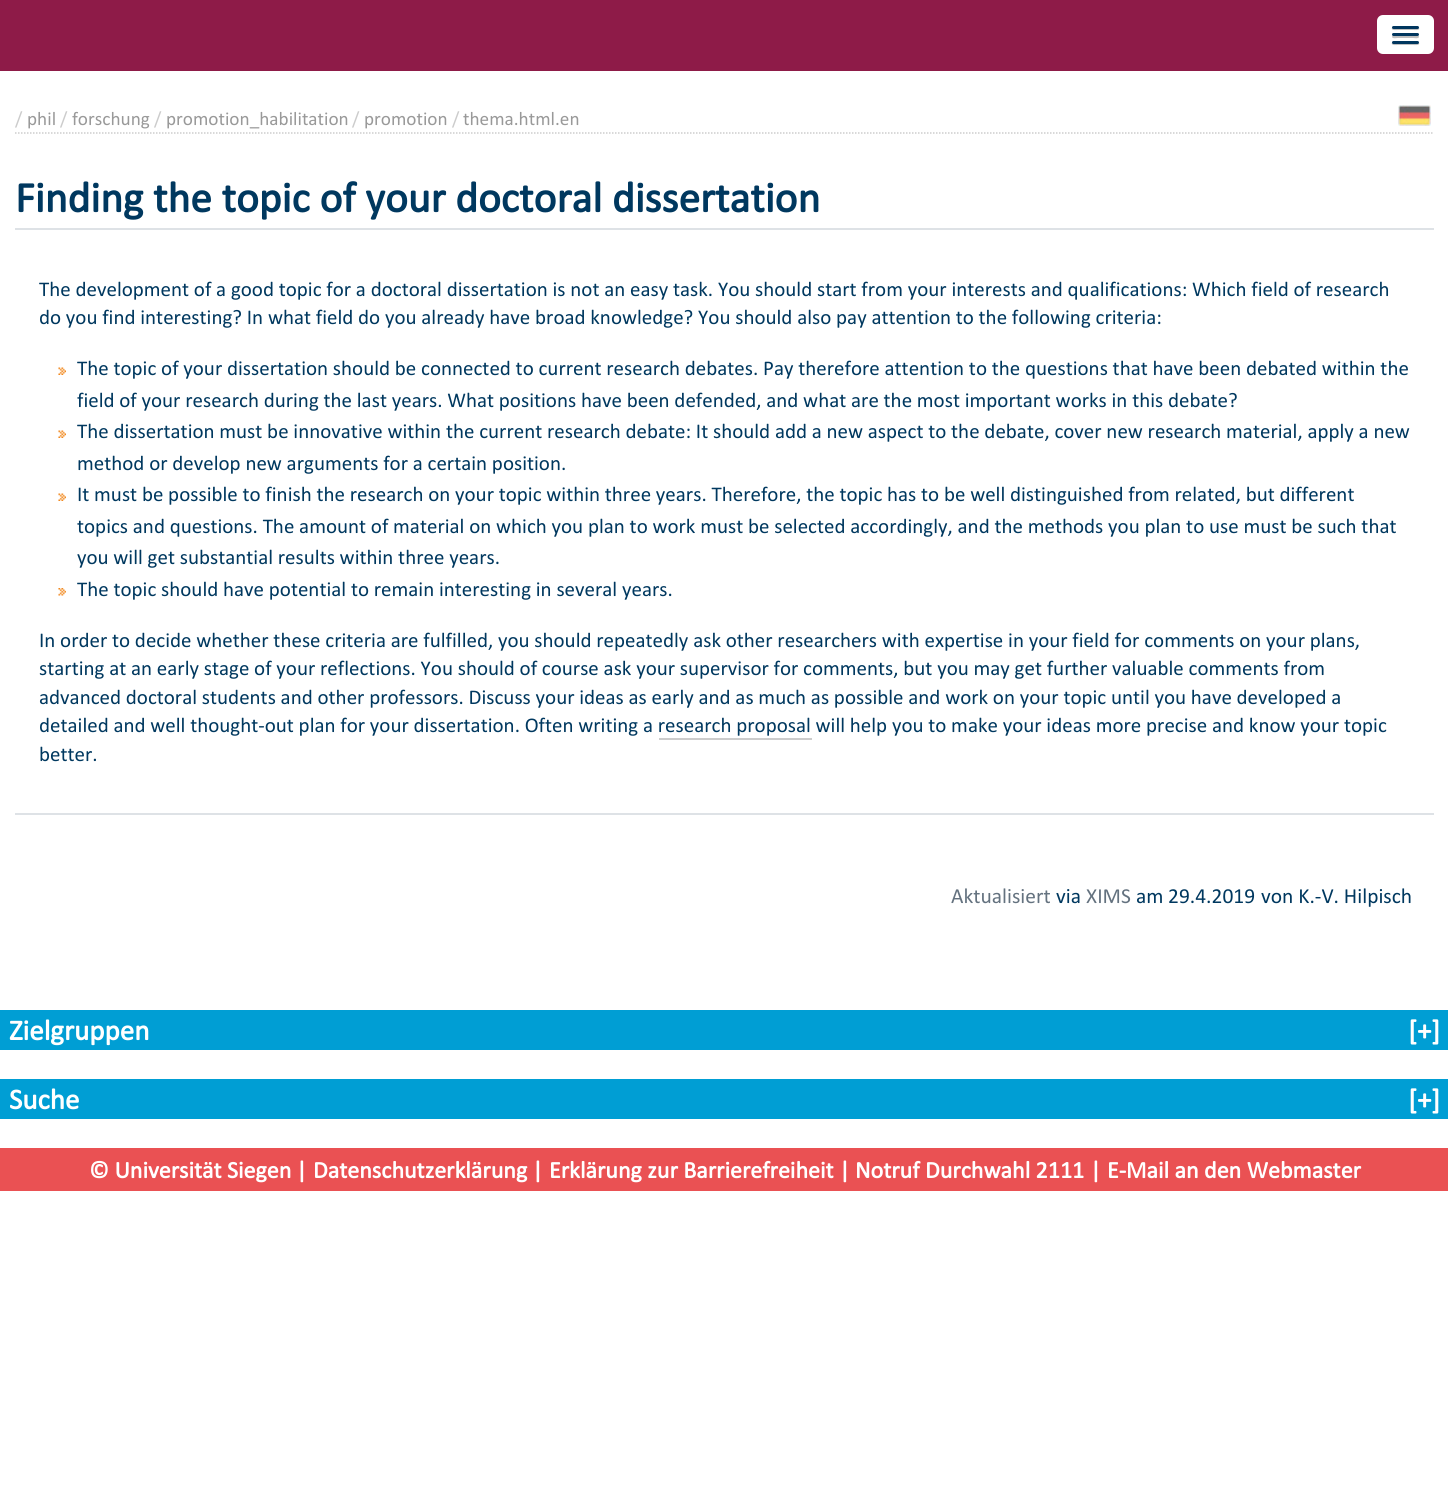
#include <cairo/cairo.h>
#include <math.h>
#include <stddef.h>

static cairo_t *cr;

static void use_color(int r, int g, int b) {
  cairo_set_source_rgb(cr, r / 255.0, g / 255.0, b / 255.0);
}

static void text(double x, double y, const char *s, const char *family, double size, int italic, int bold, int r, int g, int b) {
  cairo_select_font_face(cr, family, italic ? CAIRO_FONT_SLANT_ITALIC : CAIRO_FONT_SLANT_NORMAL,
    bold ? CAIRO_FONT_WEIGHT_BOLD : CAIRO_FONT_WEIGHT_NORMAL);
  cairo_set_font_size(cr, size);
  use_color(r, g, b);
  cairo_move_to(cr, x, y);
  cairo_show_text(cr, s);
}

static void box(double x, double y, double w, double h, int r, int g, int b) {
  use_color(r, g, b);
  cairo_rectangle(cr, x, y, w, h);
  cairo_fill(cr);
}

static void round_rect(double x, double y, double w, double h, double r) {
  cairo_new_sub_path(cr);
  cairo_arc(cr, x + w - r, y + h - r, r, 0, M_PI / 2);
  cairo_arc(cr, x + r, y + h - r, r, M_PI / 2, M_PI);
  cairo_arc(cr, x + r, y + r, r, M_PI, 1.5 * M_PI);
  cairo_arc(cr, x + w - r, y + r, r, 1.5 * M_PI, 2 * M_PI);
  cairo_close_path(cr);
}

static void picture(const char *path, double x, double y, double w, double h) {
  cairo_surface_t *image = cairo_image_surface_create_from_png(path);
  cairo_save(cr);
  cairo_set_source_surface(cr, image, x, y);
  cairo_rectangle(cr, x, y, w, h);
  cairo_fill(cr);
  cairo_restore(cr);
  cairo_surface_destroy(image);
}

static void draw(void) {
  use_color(255, 255, 255);
  cairo_paint(cr);
  box(0, 0, 1448, 71, 142, 27, 72);
  use_color(255, 255, 255);
  round_rect(1377, 15, 57, 39, 6);
  cairo_fill(cr);
  use_color(191, 191, 191);
  cairo_new_path(cr);
  cairo_move_to(cr, 1392, 27.5);
  cairo_curve_to(cr, 1390.5, 31, 1397.5, 30, 1397.5, 30);
  cairo_line_to(cr, 1413.5, 30);
  cairo_curve_to(cr, 1413.5, 30, 1420.5, 31, 1419, 27.5);
  cairo_curve_to(cr, 1418.5, 28, 1418, 28.5, 1417.5, 28.5);
  cairo_line_to(cr, 1393.5, 28.5);
  cairo_curve_to(cr, 1393, 28.5, 1392.5, 28, 1392, 27.5);
  cairo_close_path(cr);
  cairo_fill(cr);
  use_color(0, 54, 94);
  round_rect(1392, 26, 27, 3, 1.5);
  cairo_fill(cr);
  use_color(191, 191, 191);
  cairo_new_path(cr);
  cairo_move_to(cr, 1392.5, 35.5);
  cairo_line_to(cr, 1392, 37);
  cairo_curve_to(cr, 1392.5, 39, 1397, 38, 1397.5, 38);
  cairo_line_to(cr, 1413.5, 38);
  cairo_curve_to(cr, 1414, 38, 1418.5, 39, 1419, 37);
  cairo_line_to(cr, 1418.5, 35.5);
  cairo_line_to(cr, 1417.5, 36);
  cairo_line_to(cr, 1393.5, 36);
  cairo_close_path(cr);
  cairo_fill(cr);
  use_color(0, 54, 94);
  round_rect(1392, 33, 27, 3, 1.5);
  cairo_fill(cr);
  use_color(191, 191, 191);
  cairo_new_path(cr);
  cairo_move_to(cr, 1392, 42.5);
  cairo_curve_to(cr, 1390.5, 46, 1397.5, 45, 1397.5, 45);
  cairo_line_to(cr, 1413.5, 45);
  cairo_curve_to(cr, 1413.5, 45, 1420.5, 46, 1419, 42.5);
  cairo_curve_to(cr, 1418.5, 43, 1418, 43.5, 1417.5, 43.5);
  cairo_line_to(cr, 1393.5, 43.5);
  cairo_curve_to(cr, 1393, 43.5, 1392.5, 43, 1392, 42.5);
  cairo_close_path(cr);
  cairo_fill(cr);
  use_color(0, 54, 94);
  round_rect(1392, 41, 27, 3, 1.5);
  cairo_fill(cr);
  cairo_new_path(cr);
  cairo_move_to(cr, 15, 133);
  cairo_line_to(cr, 1434, 133);
  use_color(204, 204, 204);
  cairo_set_line_width(cr, 1.5);
  cairo_set_dash(cr, (double[]){1.5, 1.5}, 2, 0);
  cairo_stroke(cr);
  picture("img_01.png", 1398, 105, 33, 21);
  box(15, 228, 1419, 2, 222, 226, 230);
  box(15, 813, 1419, 2, 222, 226, 230);
  picture("img_02.png", 58, 367, 8, 8);
  picture("img_02.png", 58, 430, 8, 8);
  picture("img_02.png", 58, 493, 8, 8);
  picture("img_03.png", 58, 588, 8, 8);
  box(659, 738, 153, 2, 204, 204, 204);
  box(0, 1010, 1448, 40, 0, 158, 212);
  box(0, 1079, 1448, 40, 0, 158, 212);
  box(0, 1148, 1448, 43, 234, 81, 83);
  text(15, 125, "/", "Calibri", 19.25, 0, 0, 204, 204, 204);
  text(27, 125, "phil", "Calibri", 19.25, 0, 0, 153, 153, 153);
  text(60, 125, "/", "Calibri", 19.25, 0, 0, 204, 204, 204);
  text(72, 125, "forschung", "Calibri", 19.25, 0, 0, 153, 153, 153);
  text(154, 125, "/", "Calibri", 19.25, 0, 0, 204, 204, 204);
  text(166, 125, "promotion_habilitation", "Calibri", 19.25, 0, 0, 153, 153, 153);
  text(352, 125, "/", "Calibri", 19.25, 0, 0, 204, 204, 204);
  text(364, 125, "promotion", "Calibri", 19.25, 0, 0, 153, 153, 153);
  text(452, 125, "/", "Calibri", 19.25, 0, 0, 204, 204, 204);
  text(463, 125, "thema.html.en", "Calibri", 19.25, 0, 0, 153, 153, 153);
  text(15, 212, "Finding the topic of your doctoral dissertation", "Calibri", 43.25, 0, 1, 0, 56, 95);
  text(39, 296, "The development of a good topic for a doctoral dissertation is not an easy task. You should start from your interests and qualifications: Which field of research", "Calibri", 21, 0, 0, 0, 56, 95);
  text(39, 324, "do you find interesting? In what field do you already have broad knowledge? You should also pay attention to the following criteria:", "Calibri", 21, 0, 0, 0, 56, 95);
  text(77, 375, "The topic of your dissertation should be connected to current research debates. Pay therefore attention to the questions that have been debated within the", "Calibri", 21, 0, 0, 0, 56, 95);
  text(77, 407, "field of your research during the last years. What positions have been defended, and what are the most important works in this debate?", "Calibri", 21, 0, 0, 0, 56, 95);
  text(77, 438, "The dissertation must be innovative within the current research debate: It should add a new aspect to the debate, cover new research material, apply a new", "Calibri", 21, 0, 0, 0, 56, 95);
  text(77, 470, "method or develop new arguments for a certain position.", "Calibri", 21, 0, 0, 0, 56, 95);
  text(77, 501, "It must be possible to finish the research on your topic within three years. Therefore, the topic has to be well distinguished from related, but different", "Calibri", 21, 0, 0, 0, 56, 95);
  text(77, 533, "topics and questions. The amount of material on which you plan to work must be selected accordingly, and the methods you plan to use must be such that", "Calibri", 21, 0, 0, 0, 56, 95);
  text(77, 564, "you will get substantial results within three years.", "Calibri", 21, 0, 0, 0, 56, 95);
  text(77, 596, "The topic should have potential to remain interesting in several years.", "Calibri", 21, 0, 0, 0, 56, 95);
  text(39, 647, "In order to decide whether these criteria are fulfilled, you should repeatedly ask other researchers with expertise in your field for comments on your plans,", "Calibri", 21, 0, 0, 0, 56, 95);
  text(39, 675, "starting at an early stage of your reflections. You should of course ask your supervisor for comments, but you may get further valuable comments from", "Calibri", 21, 0, 0, 0, 56, 95);
  text(39, 704, "advanced doctoral students and other professors. Discuss your ideas as early and as much as possible and work on your topic until you have developed a", "Calibri", 21, 0, 0, 0, 56, 95);
  text(39, 732, "detailed and well thought-out plan for your dissertation. Often writing a research proposal will help you to make your ideas more precise and know your topic", "Calibri", 21, 0, 0, 0, 56, 95);
  text(39, 761, "better.", "Calibri", 21, 0, 0, 0, 56, 95);
  text(951, 903, "Aktualisiert", "Calibri", 21.5, 0, 0, 100, 114, 127);
  text(1056, 903, "via", "Calibri", 21.5, 0, 0, 0, 56, 95);
  text(1086, 903, "XIMS", "Calibri", 21.5, 0, 0, 100, 114, 127);
  text(1136, 903, "am", "Calibri", 21.5, 0, 0, 0, 56, 95);
  text(1168, 903, "29.4.2019", "Calibri", 21.5, 0, 0, 0, 56, 95);
  text(1261, 903, "von K.-V. Hilpisch", "Calibri", 21.5, 0, 0, 0, 56, 95);
  text(9, 1040, "Zielgruppen", "Calibri", 29, 0, 1, 255, 255, 255);
  text(1408, 1040, "[+]", "Calibri", 29, 0, 1, 255, 255, 255);
  text(9, 1109, "Suche", "Calibri", 29, 0, 1, 255, 255, 255);
  text(1408, 1109, "[+]", "Calibri", 29, 0, 1, 255, 255, 255);
  text(89, 1178, "© Universität Siegen", "Calibri", 24, 0, 1, 255, 255, 255);
  text(296, 1178, "|", "Calibri", 24, 0, 1, 255, 255, 255);
  text(313, 1178, "Datenschutzerklärung", "Calibri", 24, 0, 1, 255, 255, 255);
  text(532, 1178, "|", "Calibri", 24, 0, 1, 255, 255, 255);
  text(549, 1178, "Erklärung zur Barrierefreiheit", "Calibri", 24, 0, 1, 255, 255, 255);
  text(839, 1178, "|", "Calibri", 24, 0, 1, 255, 255, 255);
  text(855, 1178, "Notruf Durchwahl 2111", "Calibri", 24, 0, 1, 255, 255, 255);
  text(1090, 1178, "|", "Calibri", 24, 0, 1, 255, 255, 255);
  text(1107, 1178, "E-Mail an den Webmaster", "Calibri", 24, 0, 1, 255, 255, 255);
}

int main(void) {
  cairo_surface_t *surface = cairo_image_surface_create(CAIRO_FORMAT_RGB24, 1448, 1487);
  cr = cairo_create(surface);
  cairo_font_options_t *options = cairo_font_options_create();
  cairo_font_options_set_hint_metrics(options, CAIRO_HINT_METRICS_OFF);
  cairo_font_options_set_hint_style(options, CAIRO_HINT_STYLE_NONE);
  cairo_set_font_options(cr, options);
  cairo_set_miter_limit(cr, 4);
  draw();
  cairo_surface_write_to_png(surface, "out.png");
  cairo_font_options_destroy(options);
  cairo_destroy(cr);
  cairo_surface_destroy(surface);
  return 0;
}
